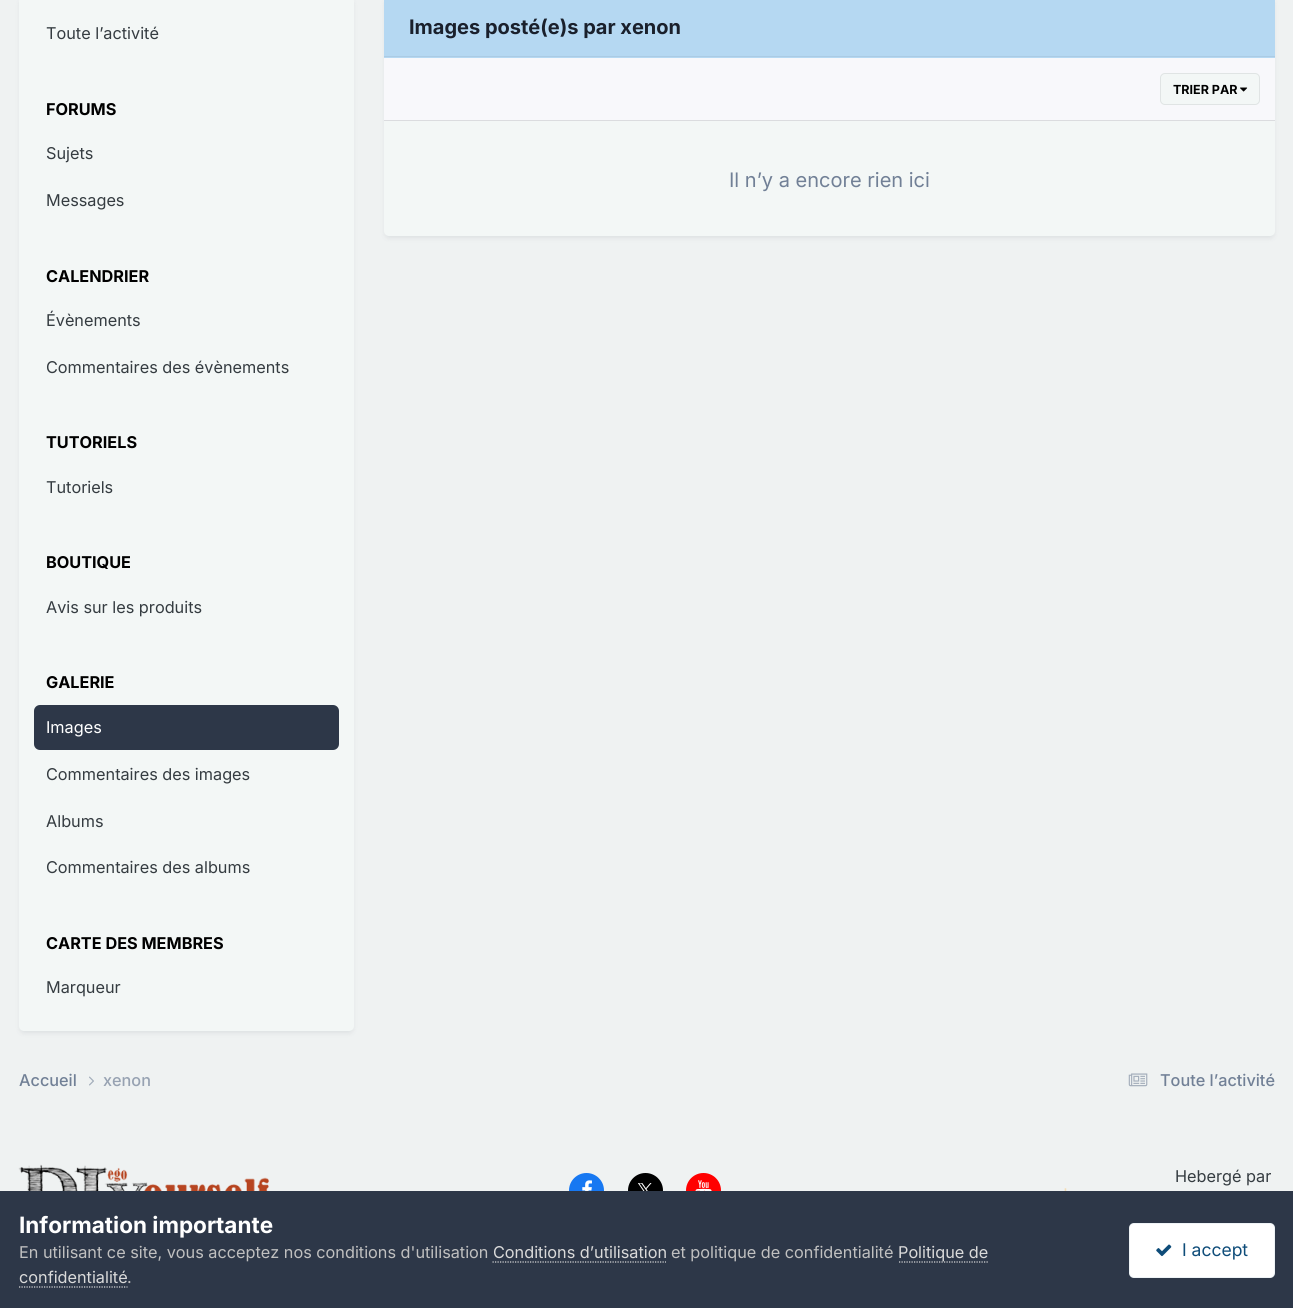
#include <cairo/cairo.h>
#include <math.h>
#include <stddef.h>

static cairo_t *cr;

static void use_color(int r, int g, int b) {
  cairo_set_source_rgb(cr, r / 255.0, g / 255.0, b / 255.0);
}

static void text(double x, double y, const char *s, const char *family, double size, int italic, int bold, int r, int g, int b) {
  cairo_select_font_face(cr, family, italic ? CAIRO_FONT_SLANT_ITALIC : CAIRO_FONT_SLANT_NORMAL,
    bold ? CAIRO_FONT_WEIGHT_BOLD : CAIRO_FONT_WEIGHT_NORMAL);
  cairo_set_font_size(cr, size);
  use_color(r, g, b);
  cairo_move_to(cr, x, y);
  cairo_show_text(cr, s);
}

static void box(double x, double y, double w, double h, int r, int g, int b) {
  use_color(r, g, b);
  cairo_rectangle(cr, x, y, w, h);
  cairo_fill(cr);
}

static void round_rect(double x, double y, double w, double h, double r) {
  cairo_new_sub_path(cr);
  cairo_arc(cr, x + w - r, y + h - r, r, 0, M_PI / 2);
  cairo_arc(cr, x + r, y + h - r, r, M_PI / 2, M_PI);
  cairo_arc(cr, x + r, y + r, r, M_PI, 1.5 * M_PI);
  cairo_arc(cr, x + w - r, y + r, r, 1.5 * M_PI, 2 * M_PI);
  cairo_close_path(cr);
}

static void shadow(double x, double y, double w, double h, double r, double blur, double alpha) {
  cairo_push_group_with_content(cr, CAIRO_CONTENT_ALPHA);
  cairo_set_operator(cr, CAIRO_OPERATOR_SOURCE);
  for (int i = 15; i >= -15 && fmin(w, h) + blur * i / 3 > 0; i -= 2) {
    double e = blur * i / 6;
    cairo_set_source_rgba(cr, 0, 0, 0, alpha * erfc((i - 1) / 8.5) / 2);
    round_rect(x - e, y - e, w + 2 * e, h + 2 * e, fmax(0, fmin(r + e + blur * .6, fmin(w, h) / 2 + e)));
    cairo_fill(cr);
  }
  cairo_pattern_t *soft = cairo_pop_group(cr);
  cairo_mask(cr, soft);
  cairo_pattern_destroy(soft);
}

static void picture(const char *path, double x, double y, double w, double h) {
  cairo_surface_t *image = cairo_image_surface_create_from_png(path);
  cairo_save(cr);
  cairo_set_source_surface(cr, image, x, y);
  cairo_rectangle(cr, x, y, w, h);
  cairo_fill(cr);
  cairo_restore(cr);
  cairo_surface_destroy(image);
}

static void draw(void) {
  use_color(239, 242, 242);
  cairo_paint(cr);
  use_color(45, 55, 72);
  shadow(20, 0, 333, 1033, 4, 2.5, 0.1);
  use_color(243, 247, 246);
  round_rect(19, -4, 335, 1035, 5);
  cairo_fill(cr);
  use_color(45, 55, 72);
  round_rect(34, 705, 305, 45, 6);
  cairo_fill(cr);
  use_color(45, 55, 72);
  shadow(385, 0, 889, 238, 4, 2.5, 0.1);
  use_color(243, 247, 246);
  round_rect(384, -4, 891, 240, 5);
  cairo_fill(cr);
  box(384, 0, 891, 58, 181, 216, 242);
  box(384, 56, 891, 1, 171, 203, 228);
  box(384, 58, 891, 62, 248, 248, 251);
  box(384, 120, 891, 1, 219, 220, 223);
  use_color(243, 247, 246);
  round_rect(1160, 73, 100, 32, 5);
  cairo_fill(cr);
  picture("img_01.png", 1240, 87, 8, 5);
  round_rect(1160.5, 73.5, 99, 31, 4.5);
  use_color(224, 228, 228);
  cairo_set_line_width(cr, 1);
  cairo_stroke(cr);
  picture("img_02.png", 89, 1076, 5, 10);
  picture("img_03.png", 1128, 1073, 20, 14);
  picture("img_04.png", 18, 1164, 251, 27);
  use_color(23, 120, 242);
  cairo_arc(cr, 586.5, 1190.5, 17.5, 0, 2 * M_PI);
  cairo_fill(cr);
  picture("img_05.png", 582, 1180, 10, 11);
  use_color(0, 0, 0);
  cairo_arc(cr, 645.5, 1190.5, 17.5, 0, 2 * M_PI);
  cairo_fill(cr);
  picture("img_06.png", 638, 1183, 14, 8);
  use_color(255, 0, 0);
  cairo_arc(cr, 703.5, 1190.5, 17.5, 0, 2 * M_PI);
  cairo_fill(cr);
  picture("img_07.png", 695, 1180, 17, 11);
  picture("img_08.png", 1064, 1188, 3, 3);
  box(0, 1191, 1293, 117, 45, 55, 72);
  cairo_new_path(cr);
  cairo_move_to(cr, 492.5, 1262);
  cairo_line_to(cr, 666, 1262);
  use_color(218, 218, 218);
  cairo_set_line_width(cr, 1.2);
  cairo_set_dash(cr, (double[]){1.25, 1.25}, 2, 0);
  cairo_stroke(cr);
  cairo_new_path(cr);
  cairo_move_to(cr, 899, 1262);
  cairo_line_to(cr, 989, 1262);
  cairo_stroke(cr);
  cairo_new_path(cr);
  cairo_move_to(cr, 19, 1287);
  cairo_line_to(cr, 127.5, 1287);
  cairo_stroke(cr);
  use_color(255, 255, 255);
  round_rect(1129, 1223, 146, 55, 5);
  cairo_fill(cr);
  round_rect(1129.5, 1223.5, 145, 54, 4.5);
  cairo_set_source_rgba(cr, 0.055, 0.298, 0.475, 0.07);
  cairo_set_line_width(cr, 1);
  cairo_set_dash(cr, NULL, 0, 0);
  cairo_stroke(cr);
  picture("img_09.png", 1156, 1244, 16, 13);
  text(46, 39, "Toute l’activité", "Inter", 16.25, 0, 0, 53, 60, 65);
  text(46, 115, "FORUMS", "Inter", 16.25, 0, 1, 0, 0, 0);
  text(46, 159, "Sujets", "Inter", 16.25, 0, 0, 53, 60, 65);
  text(46, 206, "Messages", "Inter", 16.25, 0, 0, 53, 60, 65);
  text(46, 282, "CALENDRIER", "Inter", 16.25, 0, 1, 0, 0, 0);
  text(46, 326, "Évènements", "Inter", 16.25, 0, 0, 53, 60, 65);
  text(46, 373, "Commentaires des évènements", "Inter", 16.25, 0, 0, 53, 60, 65);
  text(46, 448, "TUTORIELS", "Inter", 16.25, 0, 1, 0, 0, 0);
  text(46, 493, "Tutoriels", "Inter", 16.25, 0, 0, 53, 60, 65);
  text(46, 568, "BOUTIQUE", "Inter", 16.25, 0, 1, 0, 0, 0);
  text(46, 613, "Avis sur les produits", "Inter", 16.25, 0, 0, 53, 60, 65);
  text(46, 688, "GALERIE", "Inter", 16.25, 0, 1, 0, 0, 0);
  text(46, 733, "Images", "Inter", 16.25, 0, 0, 255, 255, 255);
  text(46, 780, "Commentaires des images", "Inter", 16.25, 0, 0, 53, 60, 65);
  text(46, 827, "Albums", "Inter", 16.25, 0, 0, 53, 60, 65);
  text(46, 873, "Commentaires des albums", "Inter", 16.25, 0, 0, 53, 60, 65);
  text(46, 949, "CARTE DES MEMBRES", "Inter", 16.25, 0, 1, 0, 0, 0);
  text(46, 993, "Marqueur", "Inter", 16.25, 0, 0, 53, 60, 65);
  text(409, 34, "Images posté(e)s par xenon", "Inter", 20, 0, 1, 26, 32, 44);
  text(1173, 94, "TRIER PAR", "Inter", 12.5, 0, 1, 0, 0, 0);
  text(729, 187, "Il n’y a encore rien ici", "Inter", 20, 0, 0, 113, 128, 150);
  text(19, 1086, "Accueil", "Inter Medium", 16.25, 0, 0, 113, 128, 150);
  text(103, 1086, "xenon", "Inter Medium", 16.25, 0, 0, 151, 162, 178);
  text(1160, 1086, "Toute l’activité", "Inter Medium", 16.25, 0, 0, 113, 128, 150);
  text(1175, 1182, "Hebergé par", "Inter", 16.25, 0, 0, 53, 60, 65);
  text(19, 1233, "Information importante", "Inter", 22.5, 0, 1, 255, 255, 255);
  text(19, 1258, "En utilisant ce site, vous acceptez nos conditions d'utilisation", "Inter", 16.25, 0, 0, 192, 192, 192);
  text(493, 1258, "Conditions d’utilisation", "Inter", 16.25, 0, 0, 218, 218, 218);
  text(671, 1258, "et politique de confidentialité", "Inter", 16.25, 0, 0, 192, 192, 192);
  text(898, 1258, "Politique de", "Inter", 16.25, 0, 0, 218, 218, 218);
  text(19, 1283, "confidentialité", "Inter", 16.25, 0, 0, 218, 218, 218);
  text(127, 1283, ".", "Inter", 16.25, 0, 0, 192, 192, 192);
  text(1182, 1256, "I accept", "Inter", 17.5, 0, 0, 14, 76, 121);
}

int main(void) {
  cairo_surface_t *surface = cairo_image_surface_create(CAIRO_FORMAT_RGB24, 1293, 1308);
  cr = cairo_create(surface);
  cairo_font_options_t *options = cairo_font_options_create();
  cairo_font_options_set_hint_metrics(options, CAIRO_HINT_METRICS_OFF);
  cairo_font_options_set_hint_style(options, CAIRO_HINT_STYLE_NONE);
  cairo_set_font_options(cr, options);
  cairo_set_miter_limit(cr, 4);
  draw();
  cairo_surface_write_to_png(surface, "out.png");
  cairo_font_options_destroy(options);
  cairo_destroy(cr);
  cairo_surface_destroy(surface);
  return 0;
}
